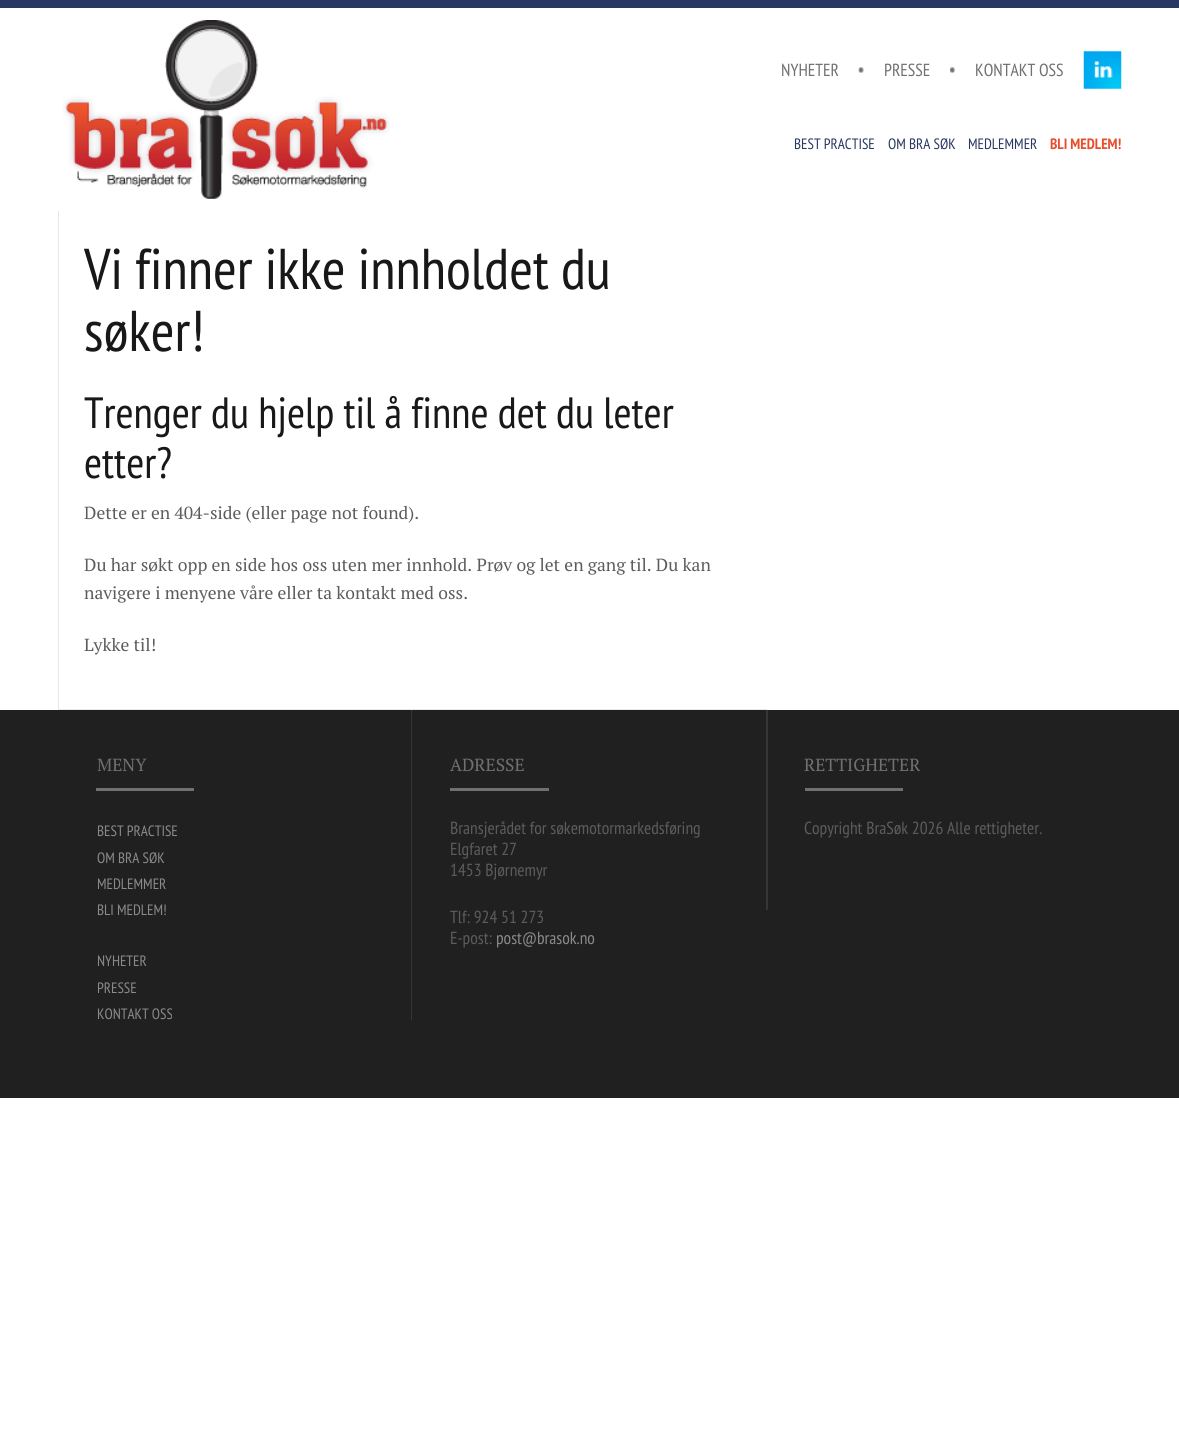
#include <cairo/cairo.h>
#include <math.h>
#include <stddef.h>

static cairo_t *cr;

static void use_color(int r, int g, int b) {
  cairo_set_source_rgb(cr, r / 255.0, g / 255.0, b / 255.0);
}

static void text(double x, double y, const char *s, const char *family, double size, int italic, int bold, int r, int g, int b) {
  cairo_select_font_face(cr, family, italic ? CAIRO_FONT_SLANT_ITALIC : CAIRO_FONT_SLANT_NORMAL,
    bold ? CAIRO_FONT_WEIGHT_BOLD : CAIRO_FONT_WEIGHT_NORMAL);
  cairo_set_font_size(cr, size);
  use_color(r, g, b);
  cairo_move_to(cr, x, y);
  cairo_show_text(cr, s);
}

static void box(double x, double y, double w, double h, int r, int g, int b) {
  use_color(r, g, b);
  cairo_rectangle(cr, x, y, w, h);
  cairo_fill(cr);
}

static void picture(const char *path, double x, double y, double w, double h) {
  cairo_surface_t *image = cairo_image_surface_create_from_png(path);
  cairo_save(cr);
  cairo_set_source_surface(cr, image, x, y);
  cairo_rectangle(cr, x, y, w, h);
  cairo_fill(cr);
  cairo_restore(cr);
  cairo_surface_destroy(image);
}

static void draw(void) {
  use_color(255, 255, 255);
  cairo_paint(cr);
  box(0, 0, 1179, 8, 41, 55, 98);
  picture("img_01.png", 63, 20, 327, 179);
  picture("img_02.png", 858, 67, 6, 6);
  picture("img_03.png", 950, 67, 5, 6);
  picture("img_04.png", 1083, 51, 39, 38);
  use_color(230, 230, 230);
  cairo_new_path(cr);
  cairo_move_to(cr, 58, 211);
  cairo_line_to(cr, 58, 710);
  cairo_line_to(cr, 59, 710);
  cairo_line_to(cr, 59, 211);
  cairo_line_to(cr, 766, 211);
  cairo_close_path(cr);
  cairo_fill(cr);
  box(59, 709, 709, 1, 233, 233, 233);
  box(0, 710, 1179, 388, 32, 32, 32);
  box(96, 788, 98, 3, 112, 112, 112);
  box(411, 710, 1, 310, 54, 54, 54);
  box(450, 788, 99, 3, 112, 112, 112);
  box(766, 710, 2, 200, 54, 54, 54);
  box(805, 788, 98, 3, 112, 112, 112);
  text(781, 76, "NYHETER", "PT Sans Narrow", 17.5, 0, 0, 112, 112, 112);
  text(884, 76, "PRESSE", "PT Sans Narrow", 17.5, 0, 0, 112, 112, 112);
  text(975, 76, "KONTAKT OSS", "PT Sans Narrow", 17.5, 0, 0, 112, 112, 112);
  text(794, 149, "BEST PRACTISE", "PT Sans Narrow", 15, 0, 0, 41, 55, 98);
  text(888, 149, "OM BRA SØK", "PT Sans Narrow", 15, 0, 0, 41, 55, 98);
  text(968, 149, "MEDLEMMER", "PT Sans Narrow", 15, 0, 0, 41, 55, 98);
  text(1050, 149, "BLI MEDLEM!", "PT Sans Narrow", 15, 0, 1, 230, 79, 44);
  text(84, 289, "Vi finner ikke innholdet du", "PT Sans Narrow", 57.5, 0, 0, 24, 24, 24);
  text(84, 351, "søker!", "PT Sans Narrow", 57.5, 0, 0, 24, 24, 24);
  text(84, 428, "Trenger du hjelp til å finne det du leter", "PT Sans Narrow", 43.75, 0, 0, 24, 24, 24);
  text(84, 478, "etter?", "PT Sans Narrow", 43.75, 0, 0, 24, 24, 24);
  text(84, 519, "Dette er en 404-side (eller page not found).", "PT Serif", 17.5, 0, 0, 92, 92, 92);
  text(84, 571, "Du har søkt opp en side hos oss uten mer innhold. Prøv og let en gang til. Du kan", "PT Serif", 17.5, 0, 0, 92, 92, 92);
  text(84, 599, "navigere i menyene våre eller ta kontakt med oss.", "PT Serif", 17.5, 0, 0, 92, 92, 92);
  text(84, 651, "Lykke til!", "PT Serif", 17.5, 0, 0, 92, 92, 92);
  text(97, 771, "MENY", "PT Serif", 17.5, 0, 0, 112, 112, 112);
  text(97, 836, "BEST PRACTISE", "PT Sans Narrow", 15, 0, 0, 138, 138, 138);
  text(97, 863, "OM BRA SØK", "PT Sans Narrow", 15, 0, 0, 138, 138, 138);
  text(97, 889, "MEDLEMMER", "PT Sans Narrow", 15, 0, 0, 138, 138, 138);
  text(97, 915, "BLI MEDLEM!", "PT Sans Narrow", 15, 0, 0, 138, 138, 138);
  text(97, 966, "NYHETER", "PT Sans Narrow", 15, 0, 0, 138, 138, 138);
  text(97, 993, "PRESSE", "PT Sans Narrow", 15, 0, 0, 138, 138, 138);
  text(97, 1019, "KONTAKT OSS", "PT Sans Narrow", 15, 0, 0, 138, 138, 138);
  text(450, 771, "ADRESSE", "PT Serif", 17.5, 0, 0, 112, 112, 112);
  text(450, 834, "Bransjerådet for søkemotormarkedsføring", "PT Sans Narrow", 17.5, 0, 0, 92, 92, 92);
  text(450, 855, "Elgfaret 27", "PT Sans Narrow", 17.5, 0, 0, 92, 92, 92);
  text(450, 876, "1453 Bjørnemyr", "PT Sans Narrow", 17.5, 0, 0, 92, 92, 92);
  text(450, 923, "Tlf: 924 51 273", "PT Sans Narrow", 17.5, 0, 0, 92, 92, 92);
  text(450, 944, "E-post:", "PT Sans Narrow", 17.5, 0, 0, 92, 92, 92);
  text(496, 944, "post@brasok.no", "PT Sans Narrow", 17.5, 0, 0, 138, 138, 138);
  text(804, 771, "RETTIGHETER", "PT Serif", 17.5, 0, 0, 112, 112, 112);
  text(804, 834, "Copyright BraSøk 2026 Alle rettigheter.", "PT Sans Narrow", 17.5, 0, 0, 92, 92, 92);
}

int main(void) {
  cairo_surface_t *surface = cairo_image_surface_create(CAIRO_FORMAT_RGB24, 1179, 1440);
  cr = cairo_create(surface);
  cairo_font_options_t *options = cairo_font_options_create();
  cairo_font_options_set_hint_metrics(options, CAIRO_HINT_METRICS_OFF);
  cairo_font_options_set_hint_style(options, CAIRO_HINT_STYLE_NONE);
  cairo_set_font_options(cr, options);
  cairo_set_miter_limit(cr, 4);
  draw();
  cairo_surface_write_to_png(surface, "out.png");
  cairo_font_options_destroy(options);
  cairo_destroy(cr);
  cairo_surface_destroy(surface);
  return 0;
}
